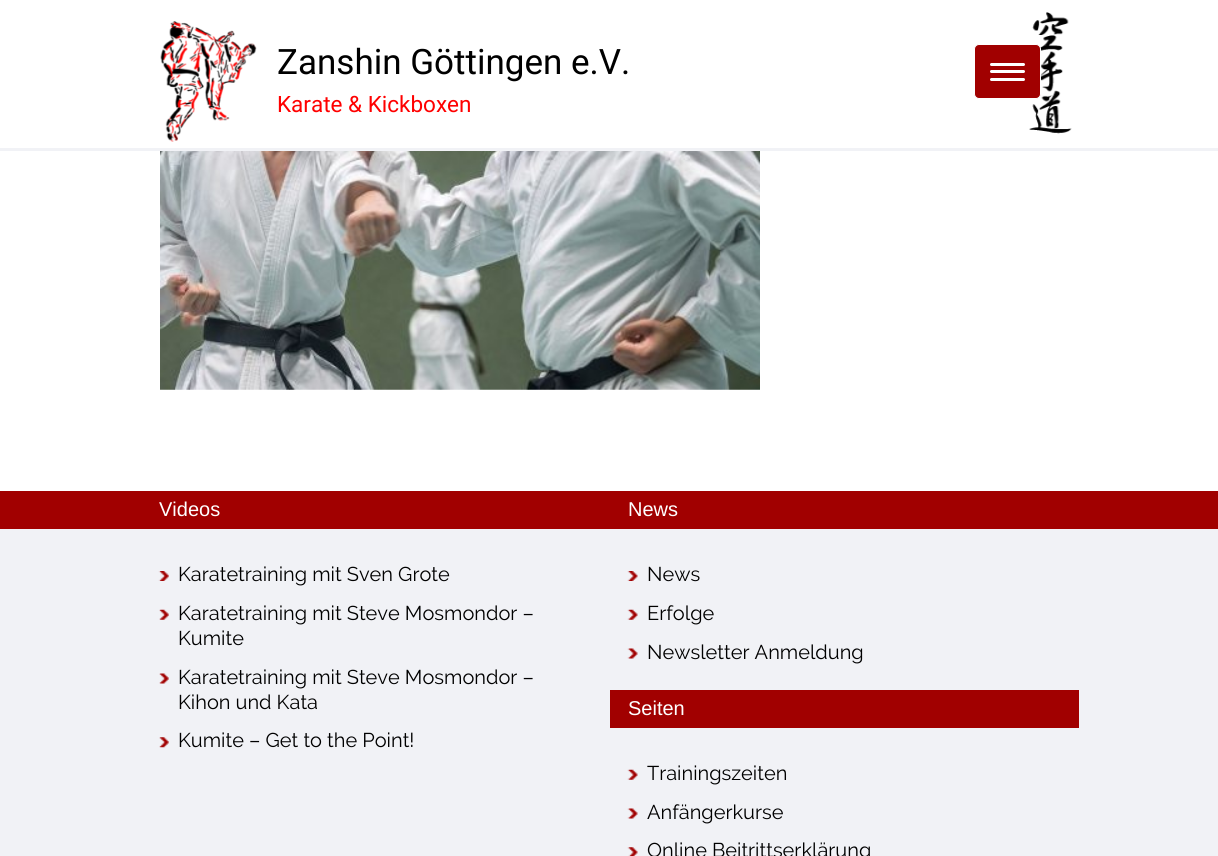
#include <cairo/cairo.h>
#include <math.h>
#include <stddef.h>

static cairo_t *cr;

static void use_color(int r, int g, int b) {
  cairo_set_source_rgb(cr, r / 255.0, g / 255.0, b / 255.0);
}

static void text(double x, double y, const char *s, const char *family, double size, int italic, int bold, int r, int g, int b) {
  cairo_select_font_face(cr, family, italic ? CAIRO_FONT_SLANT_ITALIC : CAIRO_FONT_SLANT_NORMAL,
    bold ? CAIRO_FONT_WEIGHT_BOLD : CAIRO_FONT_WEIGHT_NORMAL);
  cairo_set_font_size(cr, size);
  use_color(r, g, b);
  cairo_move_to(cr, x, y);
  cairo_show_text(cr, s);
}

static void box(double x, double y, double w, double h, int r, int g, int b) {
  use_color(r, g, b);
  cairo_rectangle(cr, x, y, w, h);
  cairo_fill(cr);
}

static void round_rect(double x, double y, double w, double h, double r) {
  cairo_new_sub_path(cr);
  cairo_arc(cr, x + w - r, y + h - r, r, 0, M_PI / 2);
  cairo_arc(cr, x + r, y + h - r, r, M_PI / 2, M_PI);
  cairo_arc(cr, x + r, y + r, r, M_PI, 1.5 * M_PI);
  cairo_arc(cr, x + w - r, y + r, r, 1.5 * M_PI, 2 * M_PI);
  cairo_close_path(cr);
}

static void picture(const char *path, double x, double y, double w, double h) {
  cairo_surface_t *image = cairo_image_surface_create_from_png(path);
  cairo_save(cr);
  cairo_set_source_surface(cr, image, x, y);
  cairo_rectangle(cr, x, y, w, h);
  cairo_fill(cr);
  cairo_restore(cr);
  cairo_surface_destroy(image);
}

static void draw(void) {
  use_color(255, 255, 255);
  cairo_paint(cr);
  box(0, 148, 1218, 3, 241, 242, 246);
  picture("img_01.png", 1029, 12, 43, 122);
  picture("img_02.png", 160, 21, 97, 121);
  use_color(161, 0, 0);
  round_rect(974.5, 44.5, 66, 54, 4.5);
  cairo_fill_preserve(cr);
  use_color(255, 255, 255);
  cairo_set_line_width(cr, 1);
  cairo_stroke(cr);
  round_rect(990, 63, 35, 3, 1.5);
  cairo_fill(cr);
  round_rect(990, 70, 35, 3, 1.5);
  cairo_fill(cr);
  round_rect(990, 78, 35, 3, 1.5);
  cairo_fill(cr);
  picture("img_03.png", 160, 151, 600, 239);
  box(0, 529, 1218, 327, 241, 242, 246);
  box(0, 491, 1218, 38, 161, 0, 0);
  picture("img_04.png", 158, 571, 11, 10);
  picture("img_05.png", 159, 609, 10, 11);
  picture("img_06.png", 159, 673, 10, 11);
  picture("img_07.png", 159, 737, 10, 11);
  picture("img_08.png", 627, 571, 11, 10);
  picture("img_09.png", 627, 609, 11, 11);
  picture("img_10.png", 627, 648, 11, 11);
  box(610, 690, 469, 38, 161, 0, 0);
  picture("img_09.png", 627, 769, 11, 11);
  picture("img_10.png", 627, 808, 11, 11);
  picture("img_11.png", 627, 847, 11, 9);
  text(277, 74, "Zanshin Göttingen e.V.", "Roboto", 35, 0, 0, 0, 0, 0);
  text(277, 112, "Karate & Kickboxen", "Roboto", 22.5, 0, 0, 255, 0, 0);
  text(159, 516, "Videos", "Liberation Sans", 20, 0, 0, 255, 255, 255);
  text(178, 581, "Karatetraining mit Sven Grote", "Raleway", 20, 0, 0, 0, 0, 0);
  text(178, 620, "Karatetraining mit Steve Mosmondor –", "Raleway", 20, 0, 0, 0, 0, 0);
  text(178, 645, "Kumite", "Raleway", 20, 0, 0, 0, 0, 0);
  text(178, 684, "Karatetraining mit Steve Mosmondor –", "Raleway", 20, 0, 0, 0, 0, 0);
  text(178, 709, "Kihon und Kata", "Raleway", 20, 0, 0, 0, 0, 0);
  text(178, 747, "Kumite – Get to the Point!", "Raleway", 20, 0, 0, 0, 0, 0);
  text(628, 516, "News", "Liberation Sans", 20, 0, 0, 255, 255, 255);
  text(647, 581, "News", "Raleway", 20, 0, 0, 0, 0, 0);
  text(647, 620, "Erfolge", "Raleway", 20, 0, 0, 0, 0, 0);
  text(647, 659, "Newsletter Anmeldung", "Raleway", 20, 0, 0, 0, 0, 0);
  text(628, 715, "Seiten", "Liberation Sans", 20, 0, 0, 255, 255, 255);
  text(647, 780, "Trainingszeiten", "Raleway", 20, 0, 0, 0, 0, 0);
  text(647, 819, "Anfängerkurse", "Raleway", 20, 0, 0, 0, 0, 0);
  text(647, 857, "Online Beitrittserklärung", "Raleway", 20, 0, 0, 0, 0, 0);
}

int main(void) {
  cairo_surface_t *surface = cairo_image_surface_create(CAIRO_FORMAT_RGB24, 1218, 856);
  cr = cairo_create(surface);
  cairo_font_options_t *options = cairo_font_options_create();
  cairo_font_options_set_hint_metrics(options, CAIRO_HINT_METRICS_OFF);
  cairo_font_options_set_hint_style(options, CAIRO_HINT_STYLE_NONE);
  cairo_set_font_options(cr, options);
  cairo_set_miter_limit(cr, 4);
  draw();
  cairo_surface_write_to_png(surface, "out.png");
  cairo_font_options_destroy(options);
  cairo_destroy(cr);
  cairo_surface_destroy(surface);
  return 0;
}
